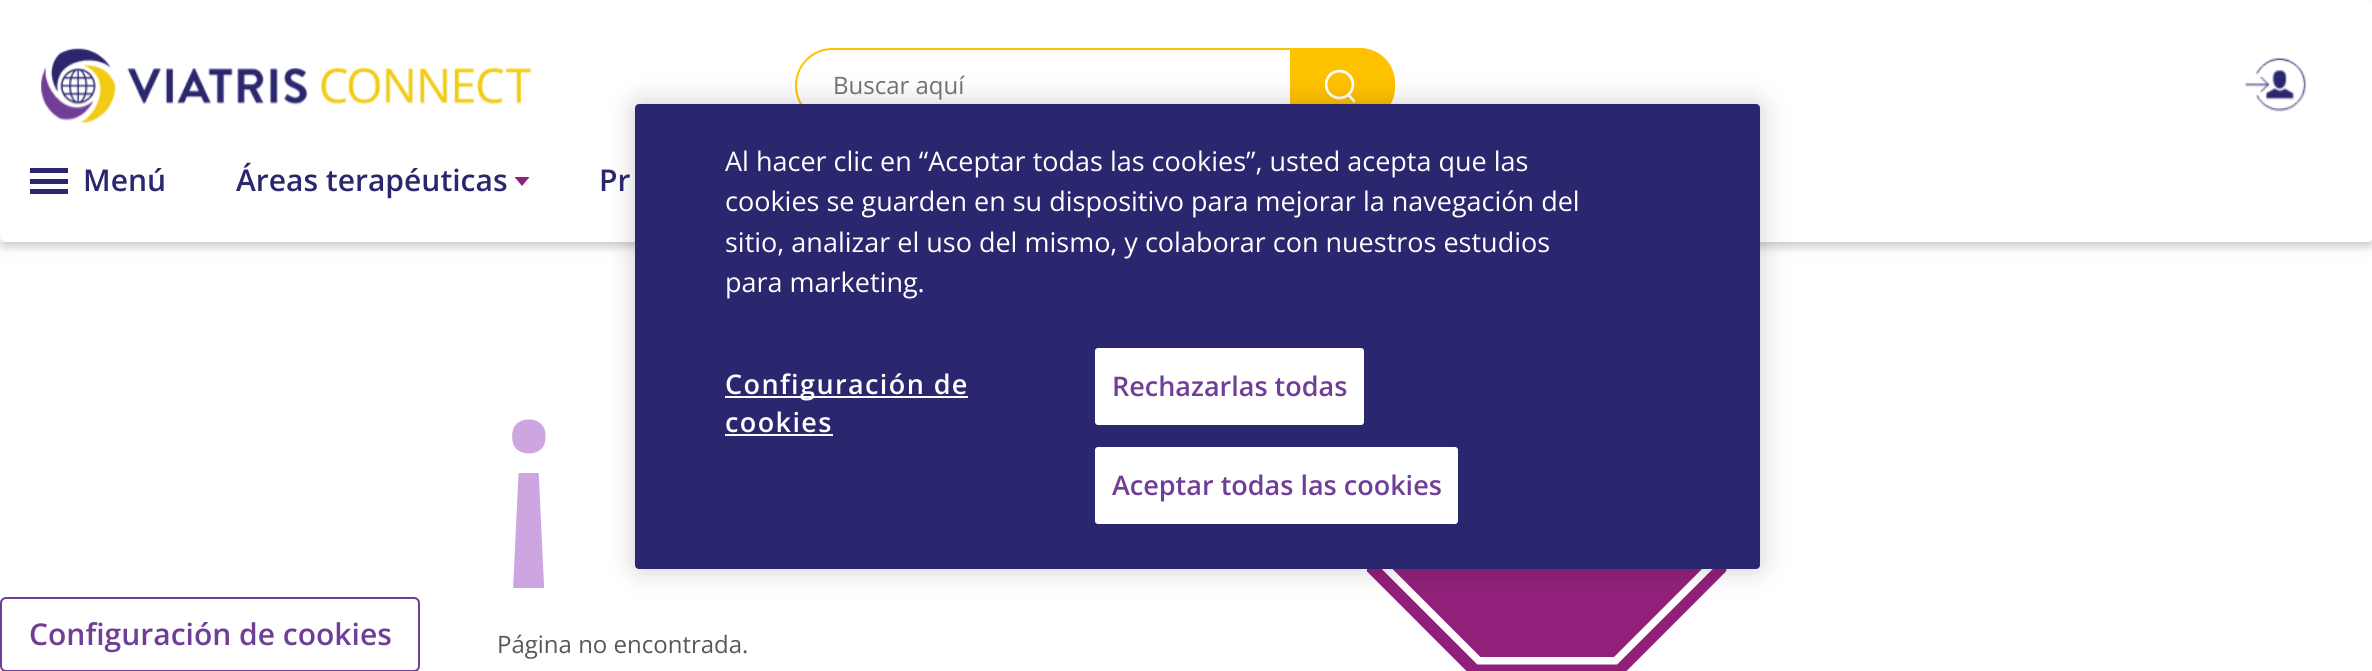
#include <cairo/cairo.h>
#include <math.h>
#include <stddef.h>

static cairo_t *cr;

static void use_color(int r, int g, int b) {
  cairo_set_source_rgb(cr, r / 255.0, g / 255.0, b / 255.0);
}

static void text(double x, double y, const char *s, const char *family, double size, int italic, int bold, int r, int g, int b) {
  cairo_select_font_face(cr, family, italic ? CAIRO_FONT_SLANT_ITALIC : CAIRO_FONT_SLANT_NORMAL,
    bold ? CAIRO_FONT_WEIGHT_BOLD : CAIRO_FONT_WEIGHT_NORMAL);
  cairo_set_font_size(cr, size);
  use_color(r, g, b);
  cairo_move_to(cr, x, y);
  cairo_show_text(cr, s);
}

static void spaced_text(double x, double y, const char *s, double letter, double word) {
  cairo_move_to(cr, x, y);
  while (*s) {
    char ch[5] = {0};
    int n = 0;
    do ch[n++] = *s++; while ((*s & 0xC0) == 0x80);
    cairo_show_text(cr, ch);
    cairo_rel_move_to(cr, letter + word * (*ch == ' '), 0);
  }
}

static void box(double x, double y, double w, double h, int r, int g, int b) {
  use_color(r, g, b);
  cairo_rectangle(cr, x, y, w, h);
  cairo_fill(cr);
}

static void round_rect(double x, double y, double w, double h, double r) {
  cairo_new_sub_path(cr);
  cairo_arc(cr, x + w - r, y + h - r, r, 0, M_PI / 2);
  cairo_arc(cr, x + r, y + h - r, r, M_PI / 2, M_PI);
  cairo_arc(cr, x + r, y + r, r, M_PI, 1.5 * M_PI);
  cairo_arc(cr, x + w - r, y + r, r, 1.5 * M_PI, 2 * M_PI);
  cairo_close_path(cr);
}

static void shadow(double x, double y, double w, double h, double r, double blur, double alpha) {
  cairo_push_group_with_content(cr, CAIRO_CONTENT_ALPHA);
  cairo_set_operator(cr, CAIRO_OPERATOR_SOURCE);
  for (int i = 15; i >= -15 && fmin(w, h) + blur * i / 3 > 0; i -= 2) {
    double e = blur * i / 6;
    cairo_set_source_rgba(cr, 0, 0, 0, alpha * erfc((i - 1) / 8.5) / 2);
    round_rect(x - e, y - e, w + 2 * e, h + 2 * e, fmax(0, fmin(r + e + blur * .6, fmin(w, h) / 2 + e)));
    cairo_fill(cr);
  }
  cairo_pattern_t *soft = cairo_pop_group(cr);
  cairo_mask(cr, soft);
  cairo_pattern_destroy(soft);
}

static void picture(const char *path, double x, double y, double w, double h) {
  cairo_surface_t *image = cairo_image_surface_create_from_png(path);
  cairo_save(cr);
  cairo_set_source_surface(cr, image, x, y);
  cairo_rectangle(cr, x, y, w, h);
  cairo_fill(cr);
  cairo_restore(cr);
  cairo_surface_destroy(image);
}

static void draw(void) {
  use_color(255, 255, 255);
  cairo_paint(cr);
  cairo_save(cr);
  cairo_set_fill_rule(cr, CAIRO_FILL_RULE_EVEN_ODD);
  cairo_new_path(cr);
  cairo_move_to(cr, 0, 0);
  cairo_line_to(cr, 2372, 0);
  cairo_line_to(cr, 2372, 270);
  cairo_line_to(cr, 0, 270);
  cairo_close_path(cr);
  cairo_move_to(cr, 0, 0);
  cairo_line_to(cr, 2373, 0);
  cairo_line_to(cr, 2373, 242);
  cairo_line_to(cr, 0, 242);
  cairo_close_path(cr);
  cairo_clip(cr);
  use_color(0, 0, 0);
  shadow(0, 5, 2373, 241, 0, 7.5, 0.09);
  cairo_restore(cr);
  use_color(0, 0, 0);
  shadow(0, 5, 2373, 241, 6, 4.5, 0.16);
  use_color(255, 255, 255);
  round_rect(0, 0, 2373, 242, 6);
  cairo_fill(cr);
  picture("img_01.png", 40, 48, 491, 76);
  round_rect(796, 49, 598, 73, 36.5);
  use_color(255, 194, 0);
  cairo_stroke(cr);
  cairo_new_path(cr);
  cairo_move_to(cr, 1290, 48);
  cairo_line_to(cr, 1360, 48);
  cairo_curve_to(cr, 1379.5, 48, 1395, 63.5, 1395, 83);
  cairo_line_to(cr, 1395, 87);
  cairo_curve_to(cr, 1395, 106.5, 1379.5, 122, 1360, 122);
  cairo_line_to(cr, 1290, 122);
  cairo_close_path(cr);
  cairo_fill(cr);
  cairo_save(cr);
  cairo_rectangle(cr, 1325, 69, 31, 35);
  cairo_clip(cr);
  cairo_arc(cr, 1339.5, 84.5, 13.5, 0, 2 * M_PI);
  use_color(255, 255, 255);
  cairo_set_line_width(cr, 2.7);
  cairo_stroke(cr);
  cairo_restore(cr);
  cairo_new_path(cr);
  cairo_move_to(cr, 1349, 95.5);
  cairo_line_to(cr, 1354, 101);
  use_color(255, 255, 255);
  cairo_set_line_width(cr, 2.7);
  cairo_set_line_cap(cr, CAIRO_LINE_CAP_ROUND);
  cairo_stroke(cr);
  picture("img_02.png", 2245, 58, 61, 54);
  box(30, 168, 38, 5, 42, 39, 110);
  box(30, 179, 38, 5, 42, 39, 110);
  box(30, 189, 38, 5, 42, 39, 110);
  use_color(145, 32, 122);
  cairo_new_path(cr);
  cairo_move_to(cr, 514.5, 177);
  cairo_line_to(cr, 529.5, 177);
  cairo_line_to(cr, 522, 186);
  cairo_close_path(cr);
  cairo_fill(cr);
  picture("img_03.png", 1367, 569, 360, 102);
  use_color(0, 0, 0);
  shadow(635, 104, 1125, 465, 4, 13.5, 0.2);
  use_color(42, 39, 110);
  round_rect(635, 104, 1125, 465, 4);
  cairo_fill(cr);
  box(725, 396, 243, 2, 255, 255, 255);
  box(725, 434, 108, 2, 255, 255, 255);
  round_rect(1096, 349, 267, 75, 2);
  cairo_fill_preserve(cr);
  cairo_set_line_width(cr, 2);
  cairo_set_line_cap(cr, CAIRO_LINE_CAP_BUTT);
  cairo_stroke(cr);
  round_rect(1096, 448, 361, 75, 2);
  cairo_fill_preserve(cr);
  cairo_stroke(cr);
  round_rect(1, 598, 418, 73, 5);
  use_color(112, 62, 151);
  cairo_stroke(cr);
  text(833, 94, "Buscar aquí", "Open Sans", 24, 0, 0, 112, 112, 112);
  text(83, 191, "Menú", "Open Sans SemiBold", 30, 0, 0, 42, 39, 110);
  text(236, 191, "Áreas terapéuticas", "Open Sans SemiBold", 30, 0, 0, 42, 39, 110);
  text(599, 191, "Pr", "Open Sans SemiBold", 30, 0, 0, 42, 39, 110);
  text(497, 546, "¡", "Open Sans SemiBold", 232, 0, 0, 205, 165, 225);
  text(497, 653, "Página no encontrada.", "Open Sans", 24, 0, 0, 88, 88, 88);
  text(725, 171, "Al hacer clic en “Aceptar todas las cookies”, usted acepta que las", "Open Sans", 27, 0, 0, 255, 255, 255);
  text(725, 211, "cookies se guarden en su dispositivo para mejorar la navegación del", "Open Sans", 27, 0, 0, 255, 255, 255);
  text(725, 252, "sitio, analizar el uso del mismo, y colaborar con nuestros estudios", "Open Sans", 27, 0, 0, 255, 255, 255);
  text(725, 292, "para marketing.", "Open Sans", 27, 0, 0, 255, 255, 255);
  cairo_select_font_face(cr, "Open Sans SemiBold", CAIRO_FONT_SLANT_NORMAL, CAIRO_FONT_WEIGHT_NORMAL);
  spaced_text(725, 394, "Configuración de", 1.4, 0);
  spaced_text(725, 432, "cookies", 1.4, 0);
  text(1112, 396, "Rechazarlas todas", "Open Sans SemiBold", 27, 0, 0, 112, 62, 151);
  text(1112, 495, "Aceptar todas las cookies", "Open Sans SemiBold", 27, 0, 0, 112, 62, 151);
  text(29, 645, "Configuración de cookies", "Open Sans SemiBold", 30, 0, 0, 112, 62, 151);
}

int main(void) {
  cairo_surface_t *surface = cairo_image_surface_create(CAIRO_FORMAT_RGB24, 2372, 671);
  cr = cairo_create(surface);
  cairo_font_options_t *options = cairo_font_options_create();
  cairo_font_options_set_hint_metrics(options, CAIRO_HINT_METRICS_OFF);
  cairo_font_options_set_hint_style(options, CAIRO_HINT_STYLE_NONE);
  cairo_set_font_options(cr, options);
  cairo_set_miter_limit(cr, 4);
  draw();
  cairo_surface_write_to_png(surface, "out.png");
  cairo_font_options_destroy(options);
  cairo_destroy(cr);
  cairo_surface_destroy(surface);
  return 0;
}
